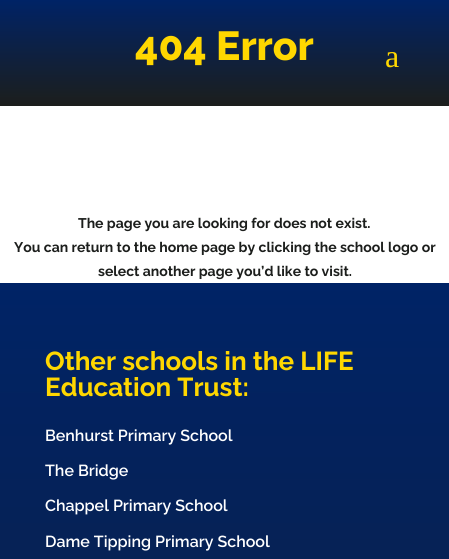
#include <cairo/cairo.h>
#include <math.h>
#include <stddef.h>

static cairo_t *cr;

static void use_color(int r, int g, int b) {
  cairo_set_source_rgb(cr, r / 255.0, g / 255.0, b / 255.0);
}

static void text(double x, double y, const char *s, const char *family, double size, int italic, int bold, int r, int g, int b) {
  cairo_select_font_face(cr, family, italic ? CAIRO_FONT_SLANT_ITALIC : CAIRO_FONT_SLANT_NORMAL,
    bold ? CAIRO_FONT_WEIGHT_BOLD : CAIRO_FONT_WEIGHT_NORMAL);
  cairo_set_font_size(cr, size);
  use_color(r, g, b);
  cairo_move_to(cr, x, y);
  cairo_show_text(cr, s);
}

static void draw(void) {
  cairo_pattern_t *gradient;
  use_color(255, 255, 255);
  cairo_paint(cr);
  gradient = cairo_pattern_create_linear(225, 0, 225, 106);
  cairo_pattern_add_color_stop_rgba(gradient, 0, 0, 0.137, 0.4, 1);
  cairo_pattern_add_color_stop_rgba(gradient, 1, 0.11, 0.118, 0.11, 1);
  cairo_set_source(cr, gradient);
  cairo_pattern_destroy(gradient);
  cairo_rectangle(cr, 0, 0, 449, 106);
  cairo_fill(cr);
  gradient = cairo_pattern_create_linear(224, 283, 225, 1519);
  cairo_pattern_add_color_stop_rgba(gradient, 0, 0, 0.137, 0.4, 1);
  cairo_pattern_add_color_stop_rgba(gradient, 0.99, 0.11, 0.118, 0.11, 1);
  cairo_set_source(cr, gradient);
  cairo_pattern_destroy(gradient);
  cairo_rectangle(cr, 0, 283, 449, 276);
  cairo_fill(cr);
  text(135, 60, "404 Error", "Raleway ExtraBold", 40.5, 0, 0, 255, 215, 0);
  text(78, 228, "The page you are looking for does not exist.", "Raleway", 14, 0, 1, 28, 30, 28);
  text(14, 252, "You can return to the home page by clicking the school logo or", "Raleway", 14, 0, 1, 28, 30, 28);
  text(98, 276, "select another page you’d like to visit.", "Raleway", 14, 0, 1, 28, 30, 28);
  text(45, 370, "Other schools in the LIFE", "Raleway", 26, 0, 1, 255, 215, 0);
  text(45, 396, "Education Trust:", "Raleway", 26, 0, 1, 255, 215, 0);
  text(45, 441, "Benhurst Primary School", "Raleway SemiBold", 16, 0, 0, 255, 255, 255);
  text(45, 476, "The Bridge", "Raleway SemiBold", 16, 0, 0, 255, 255, 255);
  text(45, 511, "Chappel Primary School", "Raleway SemiBold", 16, 0, 0, 255, 255, 255);
  text(45, 547, "Dame Tipping Primary School", "Raleway SemiBold", 16, 0, 0, 255, 255, 255);
  text(385, 67, "a", "Liberation Serif", 32, 0, 0, 255, 215, 0);
}

int main(void) {
  cairo_surface_t *surface = cairo_image_surface_create(CAIRO_FORMAT_RGB24, 449, 559);
  cr = cairo_create(surface);
  cairo_font_options_t *options = cairo_font_options_create();
  cairo_font_options_set_hint_metrics(options, CAIRO_HINT_METRICS_OFF);
  cairo_font_options_set_hint_style(options, CAIRO_HINT_STYLE_NONE);
  cairo_set_font_options(cr, options);
  cairo_set_miter_limit(cr, 4);
  draw();
  cairo_surface_write_to_png(surface, "out.png");
  cairo_font_options_destroy(options);
  cairo_destroy(cr);
  cairo_surface_destroy(surface);
  return 0;
}
